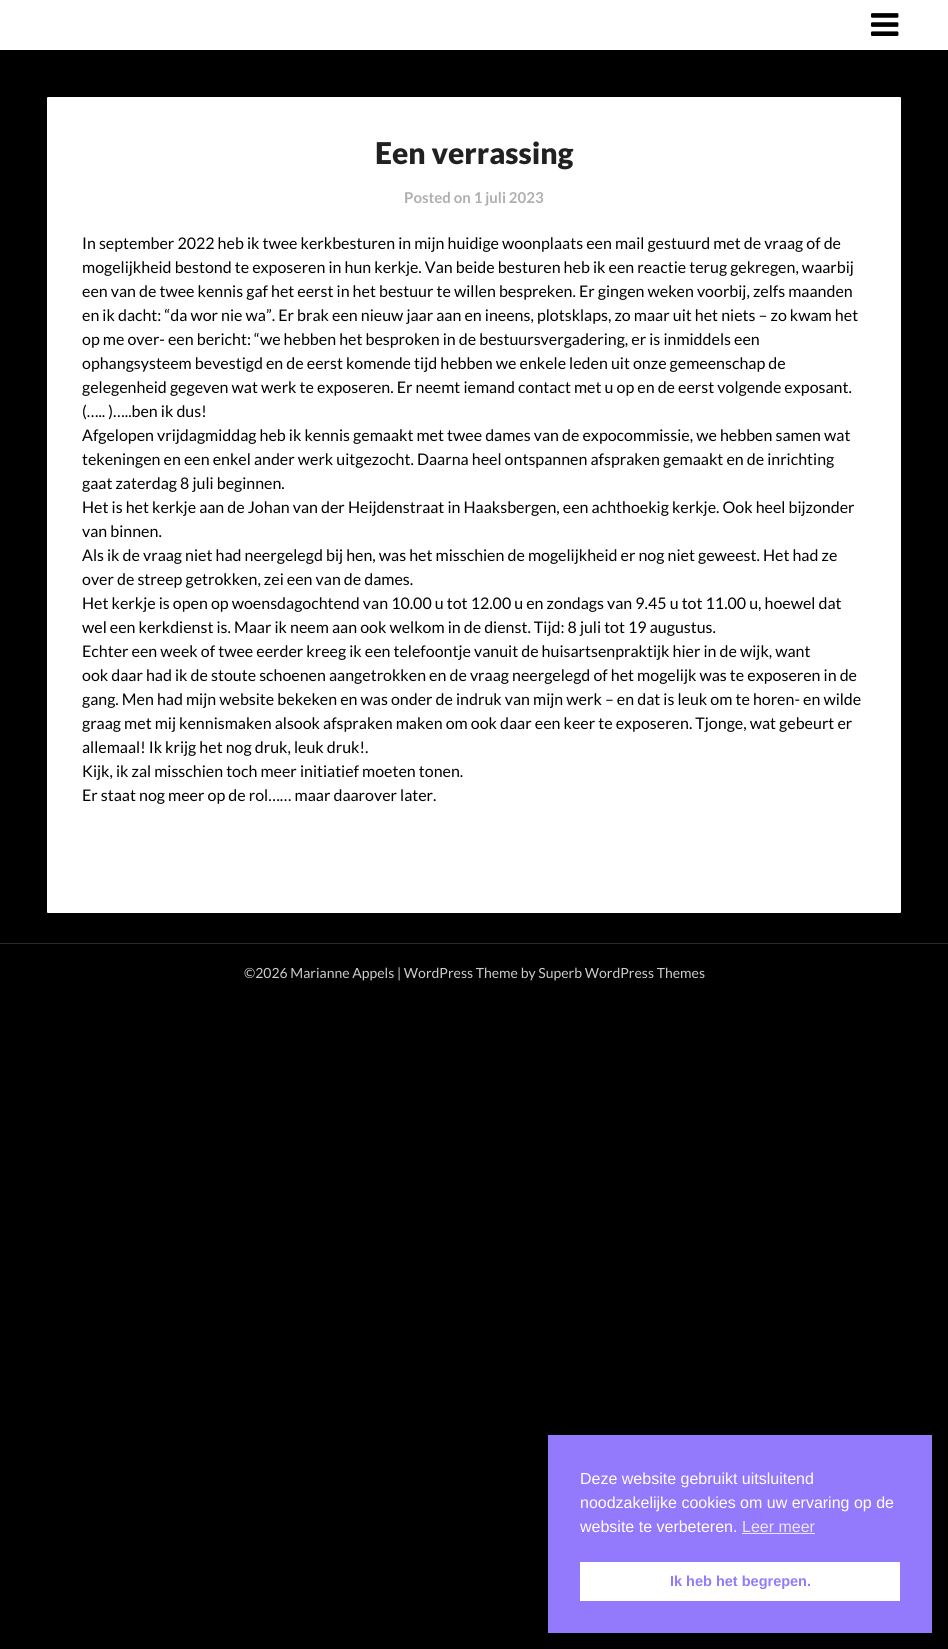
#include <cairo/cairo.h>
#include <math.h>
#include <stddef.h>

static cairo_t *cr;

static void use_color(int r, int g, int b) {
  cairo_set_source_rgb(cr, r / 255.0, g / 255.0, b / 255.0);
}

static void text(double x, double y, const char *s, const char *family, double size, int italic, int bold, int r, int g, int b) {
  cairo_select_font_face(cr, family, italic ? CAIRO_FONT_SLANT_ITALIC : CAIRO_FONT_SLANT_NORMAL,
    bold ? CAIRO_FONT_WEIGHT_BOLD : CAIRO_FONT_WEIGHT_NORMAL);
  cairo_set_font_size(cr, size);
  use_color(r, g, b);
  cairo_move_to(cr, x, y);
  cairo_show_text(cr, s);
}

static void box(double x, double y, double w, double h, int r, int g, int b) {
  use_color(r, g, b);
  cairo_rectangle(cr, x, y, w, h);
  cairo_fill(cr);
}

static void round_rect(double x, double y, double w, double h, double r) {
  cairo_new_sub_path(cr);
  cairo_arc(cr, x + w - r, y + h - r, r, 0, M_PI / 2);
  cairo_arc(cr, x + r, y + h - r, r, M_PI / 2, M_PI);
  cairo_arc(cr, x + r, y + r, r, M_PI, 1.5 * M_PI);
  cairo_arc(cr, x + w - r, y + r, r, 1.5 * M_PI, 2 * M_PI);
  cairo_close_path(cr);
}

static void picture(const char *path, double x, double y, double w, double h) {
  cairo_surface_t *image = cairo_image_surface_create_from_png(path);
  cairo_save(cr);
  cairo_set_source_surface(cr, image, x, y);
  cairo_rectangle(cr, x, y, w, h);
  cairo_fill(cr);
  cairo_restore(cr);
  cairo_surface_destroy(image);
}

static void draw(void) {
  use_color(0, 0, 0);
  cairo_paint(cr);
  box(0, 0, 948, 50, 255, 255, 255);
  picture("img_01.png", 871, 13, 28, 23);
  round_rect(47, 97, 854, 816, 1);
  cairo_fill(cr);
  box(0, 943, 948, 1, 41, 41, 41);
  box(548, 1435, 384, 198, 147, 122, 252);
  box(742, 1533, 73, 1, 233, 228, 254);
  box(580, 1562, 320, 39, 255, 255, 255);
  text(375, 164, "Een verrassing", "Lato Black", 30, 0, 0, 33, 33, 33);
  text(404, 203, "Posted on 1 juli 2023", "Lato", 15, 0, 1, 175, 175, 175);
  text(82, 249, "In september 2022 heb ik twee kerkbesturen in mijn huidige woonplaats een mail gestuurd met de vraag of de", "Lato", 16, 0, 0, 0, 0, 0);
  text(82, 273, "mogelijkheid bestond te exposeren in hun kerkje. Van beide besturen heb ik een reactie terug gekregen, waarbij", "Lato", 16, 0, 0, 0, 0, 0);
  text(82, 297, "een van de twee kennis gaf het eerst in het bestuur te willen bespreken. Er gingen weken voorbij, zelfs maanden", "Lato", 16, 0, 0, 0, 0, 0);
  text(82, 321, "en ik dacht: “da wor nie wa”. Er brak een nieuw jaar aan en ineens, plotsklaps, zo maar uit het niets – zo kwam het", "Lato", 16, 0, 0, 0, 0, 0);
  text(82, 345, "op me over- een bericht: “we hebben het besproken in de bestuursvergadering, er is inmiddels een", "Lato", 16, 0, 0, 0, 0, 0);
  text(82, 369, "ophangsysteem bevestigd en de eerst komende tijd hebben we enkele leden uit onze gemeenschap de", "Lato", 16, 0, 0, 0, 0, 0);
  text(82, 393, "gelegenheid gegeven wat werk te exposeren. Er neemt iemand contact met u op en de eerst volgende exposant.", "Lato", 16, 0, 0, 0, 0, 0);
  text(82, 417, "(….. )…..ben ik dus!", "Lato", 16, 0, 0, 0, 0, 0);
  text(82, 441, "Afgelopen vrijdagmiddag heb ik kennis gemaakt met twee dames van de expocommissie, we hebben samen wat", "Lato", 16, 0, 0, 0, 0, 0);
  text(82, 465, "tekeningen en een enkel ander werk uitgezocht. Daarna heel ontspannen afspraken gemaakt en de inrichting", "Lato", 16, 0, 0, 0, 0, 0);
  text(82, 489, "gaat zaterdag 8 juli beginnen.", "Lato", 16, 0, 0, 0, 0, 0);
  text(82, 513, "Het is het kerkje aan de Johan van der Heijdenstraat in Haaksbergen, een achthoekig kerkje. Ook heel bijzonder", "Lato", 16, 0, 0, 0, 0, 0);
  text(82, 537, "van binnen.", "Lato", 16, 0, 0, 0, 0, 0);
  text(82, 561, "Als ik de vraag niet had neergelegd bij hen, was het misschien de mogelijkheid er nog niet geweest. Het had ze", "Lato", 16, 0, 0, 0, 0, 0);
  text(82, 585, "over de streep getrokken, zei een van de dames.", "Lato", 16, 0, 0, 0, 0, 0);
  text(82, 609, "Het kerkje is open op woensdagochtend van 10.00 u tot 12.00 u en zondags van 9.45 u tot 11.00 u, hoewel dat", "Lato", 16, 0, 0, 0, 0, 0);
  text(82, 633, "wel een kerkdienst is. Maar ik neem aan ook welkom in de dienst. Tijd: 8 juli tot 19 augustus.", "Lato", 16, 0, 0, 0, 0, 0);
  text(82, 657, "Echter een week of twee eerder kreeg ik een telefoontje vanuit de huisartsenpraktijk hier in de wijk, want", "Lato", 16, 0, 0, 0, 0, 0);
  text(82, 681, "ook daar had ik de stoute schoenen aangetrokken en de vraag neergelegd of het mogelijk was te exposeren in de", "Lato", 16, 0, 0, 0, 0, 0);
  text(82, 705, "gang. Men had mijn website bekeken en was onder de indruk van mijn werk – en dat is leuk om te horen- en wilde", "Lato", 16, 0, 0, 0, 0, 0);
  text(82, 729, "graag met mij kennismaken alsook afspraken maken om ook daar een keer te exposeren. Tjonge, wat gebeurt er", "Lato", 16, 0, 0, 0, 0, 0);
  text(82, 753, "allemaal! Ik krijg het nog druk, leuk druk!.", "Lato", 16, 0, 0, 0, 0, 0);
  text(82, 777, "Kijk, ik zal misschien toch meer initiatief moeten tonen.", "Lato", 16, 0, 0, 0, 0, 0);
  text(82, 801, "Er staat nog meer op de rol…… maar daarover later.", "Lato", 16, 0, 0, 0, 0, 0);
  text(244, 978, "©2026 Marianne Appels | WordPress Theme by Superb WordPress Themes", "Lato", 14, 0, 0, 204, 204, 204);
  text(580, 1484, "Deze website gebruikt uitsluitend", "Liberation Sans", 16, 0, 0, 255, 255, 255);
  text(580, 1508, "noodzakelijke cookies om uw ervaring op de", "Liberation Sans", 16, 0, 0, 255, 255, 255);
  text(580, 1532, "website te verbeteren.", "Liberation Sans", 16, 0, 0, 255, 255, 255);
  text(742, 1532, "Leer meer", "Liberation Sans", 16, 0, 0, 233, 228, 254);
  text(670, 1586, "Ik heb het begrepen.", "Liberation Sans", 14.5, 0, 1, 147, 122, 252);
}

int main(void) {
  cairo_surface_t *surface = cairo_image_surface_create(CAIRO_FORMAT_RGB24, 948, 1649);
  cr = cairo_create(surface);
  cairo_font_options_t *options = cairo_font_options_create();
  cairo_font_options_set_hint_metrics(options, CAIRO_HINT_METRICS_OFF);
  cairo_font_options_set_hint_style(options, CAIRO_HINT_STYLE_NONE);
  cairo_set_font_options(cr, options);
  cairo_set_miter_limit(cr, 4);
  draw();
  cairo_surface_write_to_png(surface, "out.png");
  cairo_font_options_destroy(options);
  cairo_destroy(cr);
  cairo_surface_destroy(surface);
  return 0;
}
